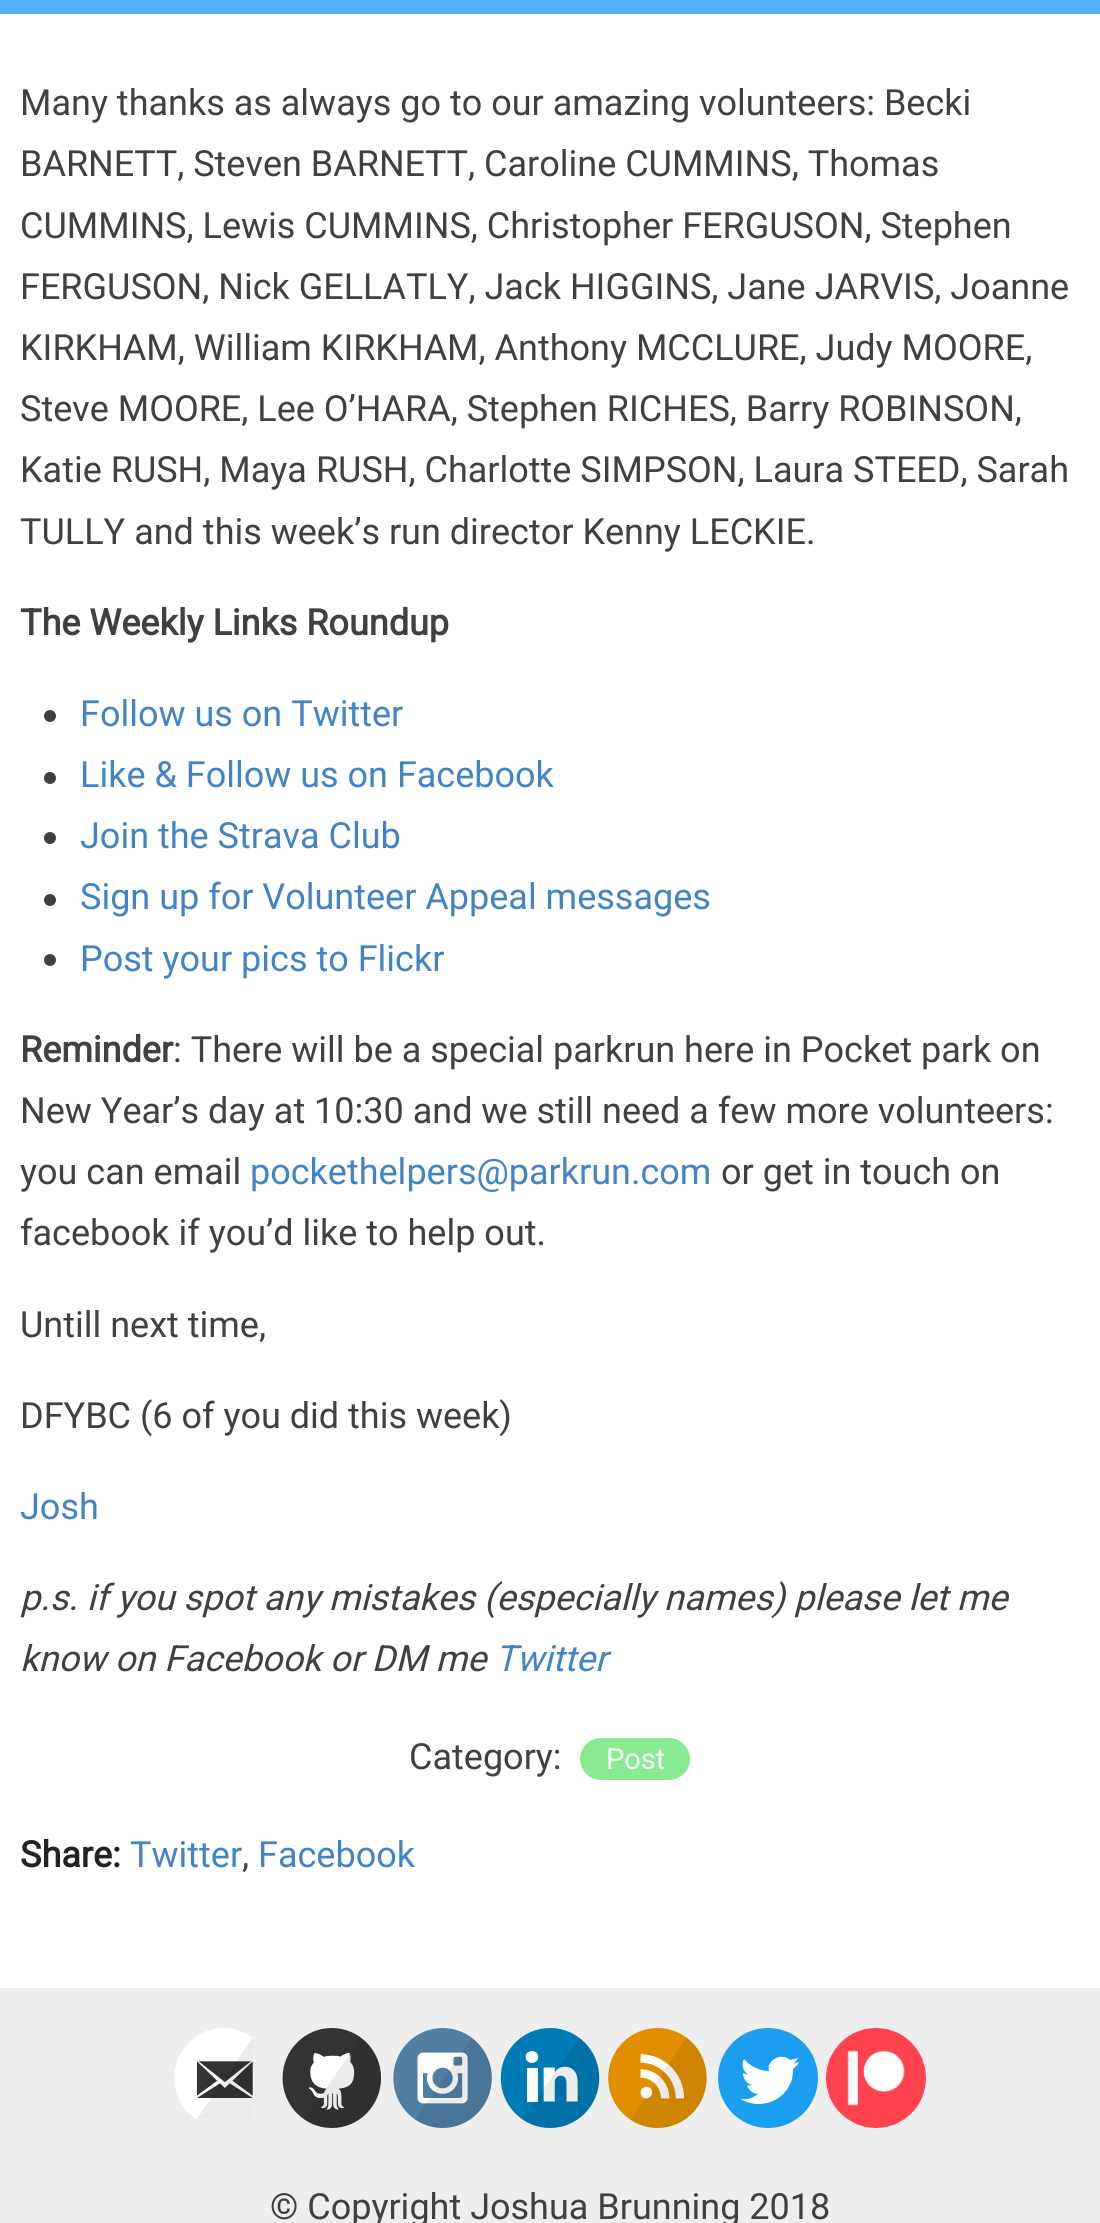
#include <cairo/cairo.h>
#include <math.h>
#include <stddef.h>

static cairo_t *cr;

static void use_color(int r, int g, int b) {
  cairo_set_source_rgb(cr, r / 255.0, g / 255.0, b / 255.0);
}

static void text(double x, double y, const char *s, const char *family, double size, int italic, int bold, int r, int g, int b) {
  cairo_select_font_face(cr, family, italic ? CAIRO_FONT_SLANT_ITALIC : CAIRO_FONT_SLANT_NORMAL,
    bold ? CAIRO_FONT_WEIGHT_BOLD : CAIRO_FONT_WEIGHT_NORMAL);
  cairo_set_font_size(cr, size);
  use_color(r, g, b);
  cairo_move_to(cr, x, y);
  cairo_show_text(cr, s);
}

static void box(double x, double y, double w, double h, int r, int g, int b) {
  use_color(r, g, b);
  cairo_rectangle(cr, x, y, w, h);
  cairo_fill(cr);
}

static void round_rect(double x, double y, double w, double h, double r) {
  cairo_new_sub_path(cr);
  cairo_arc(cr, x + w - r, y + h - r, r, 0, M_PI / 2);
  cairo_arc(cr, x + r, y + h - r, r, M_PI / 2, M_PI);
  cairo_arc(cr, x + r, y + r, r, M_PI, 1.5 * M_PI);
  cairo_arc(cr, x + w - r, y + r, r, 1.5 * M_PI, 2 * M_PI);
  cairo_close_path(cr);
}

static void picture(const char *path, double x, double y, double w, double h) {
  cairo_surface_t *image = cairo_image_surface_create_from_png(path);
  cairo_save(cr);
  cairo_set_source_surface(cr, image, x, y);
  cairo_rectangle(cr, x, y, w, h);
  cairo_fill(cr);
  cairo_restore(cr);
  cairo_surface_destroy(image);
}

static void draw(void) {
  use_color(255, 255, 255);
  cairo_paint(cr);
  box(0, 0, 1100, 14, 81, 180, 250);
  use_color(64, 64, 64);
  cairo_arc(cr, 50, 716, 6, 0, 2 * M_PI);
  cairo_fill(cr);
  cairo_arc(cr, 50, 778, 6, 0, 2 * M_PI);
  cairo_fill(cr);
  cairo_arc(cr, 50, 838, 6, 0, 2 * M_PI);
  cairo_fill(cr);
  cairo_arc(cr, 50, 900, 6, 0, 2 * M_PI);
  cairo_fill(cr);
  cairo_arc(cr, 50, 960, 6, 0, 2 * M_PI);
  cairo_fill(cr);
  use_color(138, 234, 146);
  round_rect(580, 1738, 110, 42, 21);
  cairo_fill(cr);
  box(0, 1988, 1100, 235, 238, 238, 238);
  picture("img_01.png", 174, 2028, 79, 91);
  picture("img_02.png", 282, 2028, 100, 100);
  picture("img_03.png", 393, 2028, 99, 100);
  picture("img_04.png", 500, 2028, 100, 100);
  picture("img_05.png", 608, 2028, 99, 100);
  use_color(27, 157, 240);
  cairo_arc(cr, 768, 2078, 50, 0, 2 * M_PI);
  cairo_fill(cr);
  use_color(255, 255, 255);
  cairo_new_path(cr);
  cairo_move_to(cr, 759, 2104);
  cairo_curve_to(cr, 778, 2104, 794, 2088, 793, 2069);
  cairo_curve_to(cr, 795, 2067, 798, 2065, 799, 2062);
  cairo_line_to(cr, 792, 2064);
  cairo_curve_to(cr, 795, 2063, 797, 2060, 798, 2058);
  cairo_line_to(cr, 790, 2060);
  cairo_curve_to(cr, 782, 2052, 766, 2060, 769, 2071);
  cairo_curve_to(cr, 759, 2071, 750, 2066, 744, 2059);
  cairo_curve_to(cr, 741, 2064, 743, 2071, 748, 2075);
  cairo_line_to(cr, 743, 2073);
  cairo_curve_to(cr, 743, 2079, 747, 2084, 752, 2085);
  cairo_line_to(cr, 747, 2086);
  cairo_curve_to(cr, 749, 2090, 753, 2094, 758, 2094);
  cairo_curve_to(cr, 753, 2098, 747, 2100, 740, 2099);
  cairo_curve_to(cr, 746, 2102, 752, 2104, 759, 2104);
  cairo_fill(cr);
  picture("img_06.png", 826, 2028, 100, 100);
  text(20, 115, "Many thanks as always go to our amazing volunteers: Becki", "Roboto", 36, 0, 0, 64, 64, 64);
  text(20, 176, "BARNETT, Steven BARNETT, Caroline CUMMINS, Thomas", "Roboto", 36, 0, 0, 64, 64, 64);
  text(20, 238, "CUMMINS, Lewis CUMMINS, Christopher FERGUSON, Stephen", "Roboto", 36, 0, 0, 64, 64, 64);
  text(20, 299, "FERGUSON, Nick GELLATLY, Jack HIGGINS, Jane JARVIS, Joanne", "Roboto", 36, 0, 0, 64, 64, 64);
  text(20, 360, "KIRKHAM, William KIRKHAM, Anthony MCCLURE, Judy MOORE,", "Roboto", 36, 0, 0, 64, 64, 64);
  text(20, 421, "Steve MOORE, Lee O’HARA, Stephen RICHES, Barry ROBINSON,", "Roboto", 36, 0, 0, 64, 64, 64);
  text(20, 482, "Katie RUSH, Maya RUSH, Charlotte SIMPSON, Laura STEED, Sarah", "Roboto", 36, 0, 0, 64, 64, 64);
  text(20, 544, "TULLY and this week’s run director Kenny LECKIE.", "Roboto", 36, 0, 0, 64, 64, 64);
  text(20, 635, "The Weekly Links Roundup", "Roboto", 36, 0, 1, 64, 64, 64);
  text(80, 726, "Follow us on Twitter", "Roboto", 36, 0, 0, 65, 131, 196);
  text(80, 787, "Like & Follow us on Facebook", "Roboto", 36, 0, 0, 65, 131, 196);
  text(80, 848, "Join the Strava Club", "Roboto", 36, 0, 0, 65, 131, 196);
  text(80, 909, "Sign up for Volunteer Appeal messages", "Roboto", 36, 0, 0, 65, 131, 196);
  text(80, 971, "Post your pics to Flickr", "Roboto", 36, 0, 0, 65, 131, 196);
  text(20, 1062, "Reminder", "Roboto", 36, 0, 1, 64, 64, 64);
  text(173, 1062, ": There will be a special parkrun here in Pocket park on", "Roboto", 36, 0, 0, 64, 64, 64);
  text(20, 1123, "New Year’s day at 10:30 and we still need a few more volunteers:", "Roboto", 36, 0, 0, 64, 64, 64);
  text(20, 1184, "you can email", "Roboto", 36, 0, 0, 64, 64, 64);
  text(250, 1184, "pockethelpers@parkrun.com", "Roboto", 36, 0, 0, 65, 131, 196);
  text(721, 1184, "or get in touch on", "Roboto", 36, 0, 0, 64, 64, 64);
  text(20, 1245, "facebook if you’d like to help out.", "Roboto", 36, 0, 0, 64, 64, 64);
  text(20, 1337, "Untill next time,", "Roboto", 36, 0, 0, 64, 64, 64);
  text(20, 1428, "DFYBC (6 of you did this week)", "Roboto", 36, 0, 0, 64, 64, 64);
  text(20, 1519, "Josh", "Roboto", 36, 0, 0, 65, 131, 196);
  text(20, 1610, "p.s. if you spot any mistakes (especially names) please let me", "Roboto", 36, 1, 0, 64, 64, 64);
  text(20, 1671, "know on Facebook or DM me", "Roboto", 36, 1, 0, 64, 64, 64);
  text(495, 1671, "Twitter", "Roboto", 36, 1, 0, 65, 131, 196);
  text(409, 1769, "Category:", "Roboto", 36, 0, 0, 64, 64, 64);
  text(606, 1769, "Post", "Roboto", 29, 0, 0, 255, 255, 255);
  text(20, 1867, "Share:", "Roboto", 36, 0, 1, 34, 34, 34);
  text(130, 1867, "Twitter", "Roboto", 36, 0, 0, 65, 131, 196);
  text(242, 1867, ",", "Roboto", 36, 0, 0, 64, 64, 64);
  text(258, 1867, "Facebook", "Roboto", 36, 0, 0, 65, 131, 196);
  text(270, 2219, "© Copyright Joshua Brunning 2018", "Roboto", 36, 0, 0, 64, 64, 64);
}

int main(void) {
  cairo_surface_t *surface = cairo_image_surface_create(CAIRO_FORMAT_RGB24, 1100, 2223);
  cr = cairo_create(surface);
  cairo_font_options_t *options = cairo_font_options_create();
  cairo_font_options_set_hint_metrics(options, CAIRO_HINT_METRICS_OFF);
  cairo_font_options_set_hint_style(options, CAIRO_HINT_STYLE_NONE);
  cairo_set_font_options(cr, options);
  cairo_set_miter_limit(cr, 4);
  draw();
  cairo_surface_write_to_png(surface, "out.png");
  cairo_font_options_destroy(options);
  cairo_destroy(cr);
  cairo_surface_destroy(surface);
  return 0;
}
